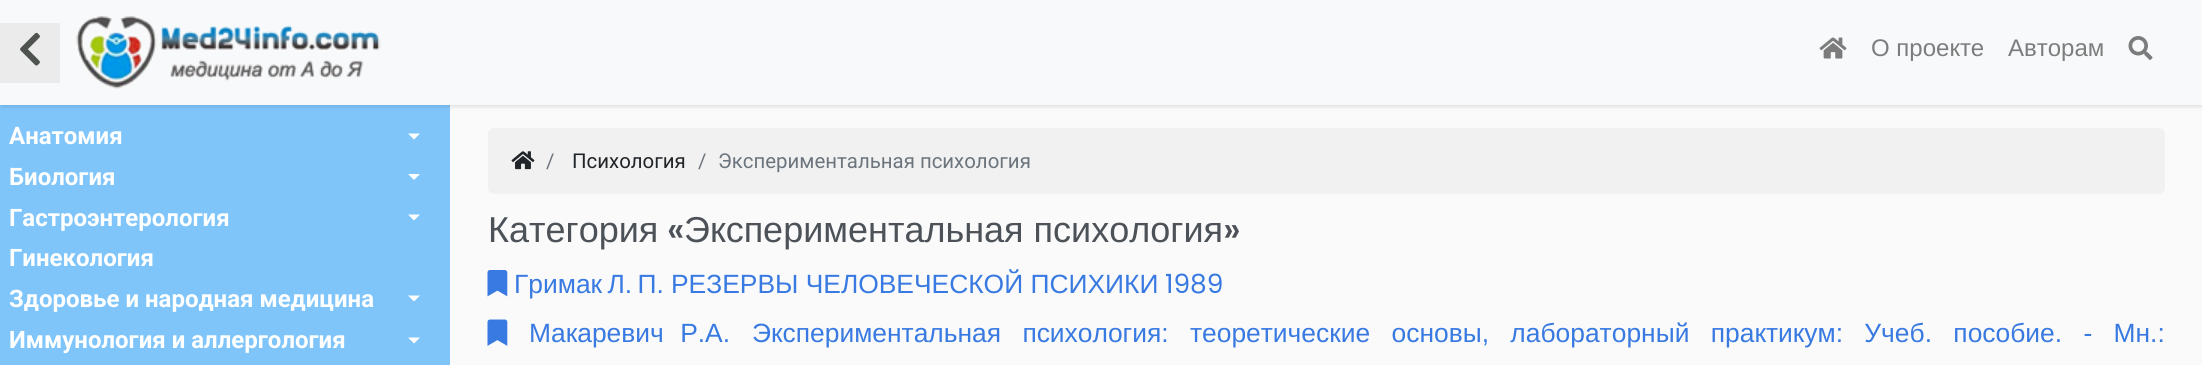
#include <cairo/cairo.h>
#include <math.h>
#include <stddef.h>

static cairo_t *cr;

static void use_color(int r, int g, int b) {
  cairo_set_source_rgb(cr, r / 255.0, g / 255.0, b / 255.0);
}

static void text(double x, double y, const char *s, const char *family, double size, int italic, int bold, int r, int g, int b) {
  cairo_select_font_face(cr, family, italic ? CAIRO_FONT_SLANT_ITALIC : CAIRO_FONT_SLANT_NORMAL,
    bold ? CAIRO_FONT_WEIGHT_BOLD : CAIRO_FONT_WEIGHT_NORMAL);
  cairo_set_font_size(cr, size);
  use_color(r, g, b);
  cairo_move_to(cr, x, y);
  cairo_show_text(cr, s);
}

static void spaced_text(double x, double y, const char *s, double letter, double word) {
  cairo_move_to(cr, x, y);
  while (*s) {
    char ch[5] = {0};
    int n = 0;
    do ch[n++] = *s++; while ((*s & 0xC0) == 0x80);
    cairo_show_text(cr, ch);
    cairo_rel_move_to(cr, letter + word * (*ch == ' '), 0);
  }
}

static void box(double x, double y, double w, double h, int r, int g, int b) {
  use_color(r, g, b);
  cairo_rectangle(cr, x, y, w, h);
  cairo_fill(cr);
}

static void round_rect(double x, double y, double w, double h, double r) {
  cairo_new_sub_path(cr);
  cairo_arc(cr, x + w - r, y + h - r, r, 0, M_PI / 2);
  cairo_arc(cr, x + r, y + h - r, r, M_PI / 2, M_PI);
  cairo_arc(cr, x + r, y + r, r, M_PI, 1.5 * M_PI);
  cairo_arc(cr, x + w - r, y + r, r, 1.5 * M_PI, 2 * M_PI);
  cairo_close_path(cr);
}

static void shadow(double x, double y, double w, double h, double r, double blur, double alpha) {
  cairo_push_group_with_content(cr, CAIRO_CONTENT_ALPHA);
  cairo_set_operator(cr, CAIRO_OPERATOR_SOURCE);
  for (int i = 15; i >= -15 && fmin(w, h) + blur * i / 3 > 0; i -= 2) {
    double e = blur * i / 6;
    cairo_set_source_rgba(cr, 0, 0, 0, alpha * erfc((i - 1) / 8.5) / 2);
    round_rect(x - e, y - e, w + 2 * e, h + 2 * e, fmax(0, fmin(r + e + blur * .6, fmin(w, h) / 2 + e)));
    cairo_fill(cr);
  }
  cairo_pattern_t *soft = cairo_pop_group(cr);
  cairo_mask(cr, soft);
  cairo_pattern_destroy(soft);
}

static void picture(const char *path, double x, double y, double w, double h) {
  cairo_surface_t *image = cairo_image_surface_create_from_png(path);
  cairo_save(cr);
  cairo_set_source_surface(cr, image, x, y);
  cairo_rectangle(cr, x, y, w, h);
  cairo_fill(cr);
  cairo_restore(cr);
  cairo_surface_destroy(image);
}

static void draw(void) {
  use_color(250, 250, 250);
  cairo_paint(cr);
  box(0, 105, 450, 260, 127, 197, 250);
  use_color(0, 0, 0);
  shadow(2, 2, 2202, 105, 0, 2, 0.1);
  box(0, 0, 2202, 105, 248, 249, 250);
  box(0, 23, 60, 60, 235, 235, 235);
  picture("img_01.png", 20, 32, 20, 34);
  picture("img_02.png", 75, 16, 306, 74);
  picture("img_03.png", 1819, 37, 28, 22);
  picture("img_04.png", 2128, 36, 25, 24);
  use_color(255, 255, 255);
  cairo_new_path(cr);
  cairo_move_to(cr, 408, 133.5);
  cairo_line_to(cr, 420, 133.5);
  cairo_line_to(cr, 414, 139.5);
  cairo_close_path(cr);
  cairo_fill(cr);
  cairo_new_path(cr);
  cairo_move_to(cr, 408, 174);
  cairo_line_to(cr, 420, 174);
  cairo_line_to(cr, 414, 180);
  cairo_close_path(cr);
  cairo_fill(cr);
  cairo_new_path(cr);
  cairo_move_to(cr, 408, 214.5);
  cairo_line_to(cr, 420, 214.5);
  cairo_line_to(cr, 414, 220.5);
  cairo_close_path(cr);
  cairo_fill(cr);
  cairo_new_path(cr);
  cairo_move_to(cr, 408, 295.5);
  cairo_line_to(cr, 420, 295.5);
  cairo_line_to(cr, 414, 301.5);
  cairo_close_path(cr);
  cairo_fill(cr);
  cairo_new_path(cr);
  cairo_move_to(cr, 408, 337.5);
  cairo_line_to(cr, 420, 337.5);
  cairo_line_to(cr, 414, 343.5);
  cairo_close_path(cr);
  cairo_fill(cr);
  use_color(241, 241, 241);
  round_rect(488, 128, 1677, 66, 6);
  cairo_fill(cr);
  picture("img_05.png", 511, 151, 24, 19);
  picture("img_06.png", 487, 270, 21, 27);
  picture("img_07.png", 487, 319, 21, 27);
  text(1871, 56, "О проекте", "Liberation Sans", 24, 0, 0, 124, 125, 125);
  text(2008, 56, "Авторам", "Liberation Sans", 24, 0, 0, 124, 125, 125);
  text(9, 144, "Анатомия", "Roboto", 24, 0, 1, 255, 255, 255);
  text(9, 185, "Биология", "Roboto", 24, 0, 1, 255, 255, 255);
  text(9, 226, "Гастроэнтерология", "Roboto", 24, 0, 1, 255, 255, 255);
  text(9, 266, "Гинекология", "Roboto", 24, 0, 1, 255, 255, 255);
  text(9, 307, "Здоровье и народная медицина", "Roboto", 24, 0, 1, 255, 255, 255);
  text(9, 348, "Иммунология и аллергология", "Roboto", 24, 0, 1, 255, 255, 255);
  text(546, 168, "/", "Roboto", 20.4, 0, 0, 108, 117, 125);
  text(572, 168, "Психология", "Roboto", 20.4, 0, 0, 33, 37, 41);
  text(698, 168, "/", "Roboto", 20.4, 0, 0, 108, 117, 125);
  text(718, 168, "Экспериментальная психология", "Roboto", 20.4, 0, 0, 108, 117, 125);
  text(488, 242, "Категория", "Liberation Sans", 36, 0, 0, 76, 82, 88);
  text(667, 242, "«", "Poppins Medium", 36, 0, 0, 76, 82, 88);
  text(684, 242, "Экспериментальная психология", "Liberation Sans", 36, 0, 0, 76, 82, 88);
  text(1223, 242, "»", "Poppins Medium", 36, 0, 0, 76, 82, 88);
  cairo_select_font_face(cr, "Liberation Sans", CAIRO_FONT_SLANT_NORMAL, CAIRO_FONT_WEIGHT_NORMAL);
  cairo_set_font_size(cr, 26.4);
  use_color(56, 122, 225);
  spaced_text(514, 293, "Гримак Л. П.", 0, -2);
  text(671, 293, "РЕЗЕРВЫ ЧЕЛОВЕЧЕСКОЙ ПСИХИКИ", "Liberation Sans", 26.4, 0, 0, 56, 122, 225);
  text(1165, 293, "1989", "Poppins", 26.4, 0, 0, 56, 122, 225);
  cairo_select_font_face(cr, "Liberation Sans", CAIRO_FONT_SLANT_NORMAL, CAIRO_FONT_WEIGHT_NORMAL);
  spaced_text(529, 342, "Макаревич P.А.", 0, 9);
  spaced_text(752, 342, "Экспериментальная психология: теоретические основы, лабораторный практикум: Учеб. пособие. - Мн.:", 0, 14);
}

int main(void) {
  cairo_surface_t *surface = cairo_image_surface_create(CAIRO_FORMAT_RGB24, 2202, 365);
  cr = cairo_create(surface);
  cairo_font_options_t *options = cairo_font_options_create();
  cairo_font_options_set_hint_metrics(options, CAIRO_HINT_METRICS_OFF);
  cairo_font_options_set_hint_style(options, CAIRO_HINT_STYLE_NONE);
  cairo_set_font_options(cr, options);
  cairo_set_miter_limit(cr, 4);
  draw();
  cairo_surface_write_to_png(surface, "out.png");
  cairo_font_options_destroy(options);
  cairo_destroy(cr);
  cairo_surface_destroy(surface);
  return 0;
}
